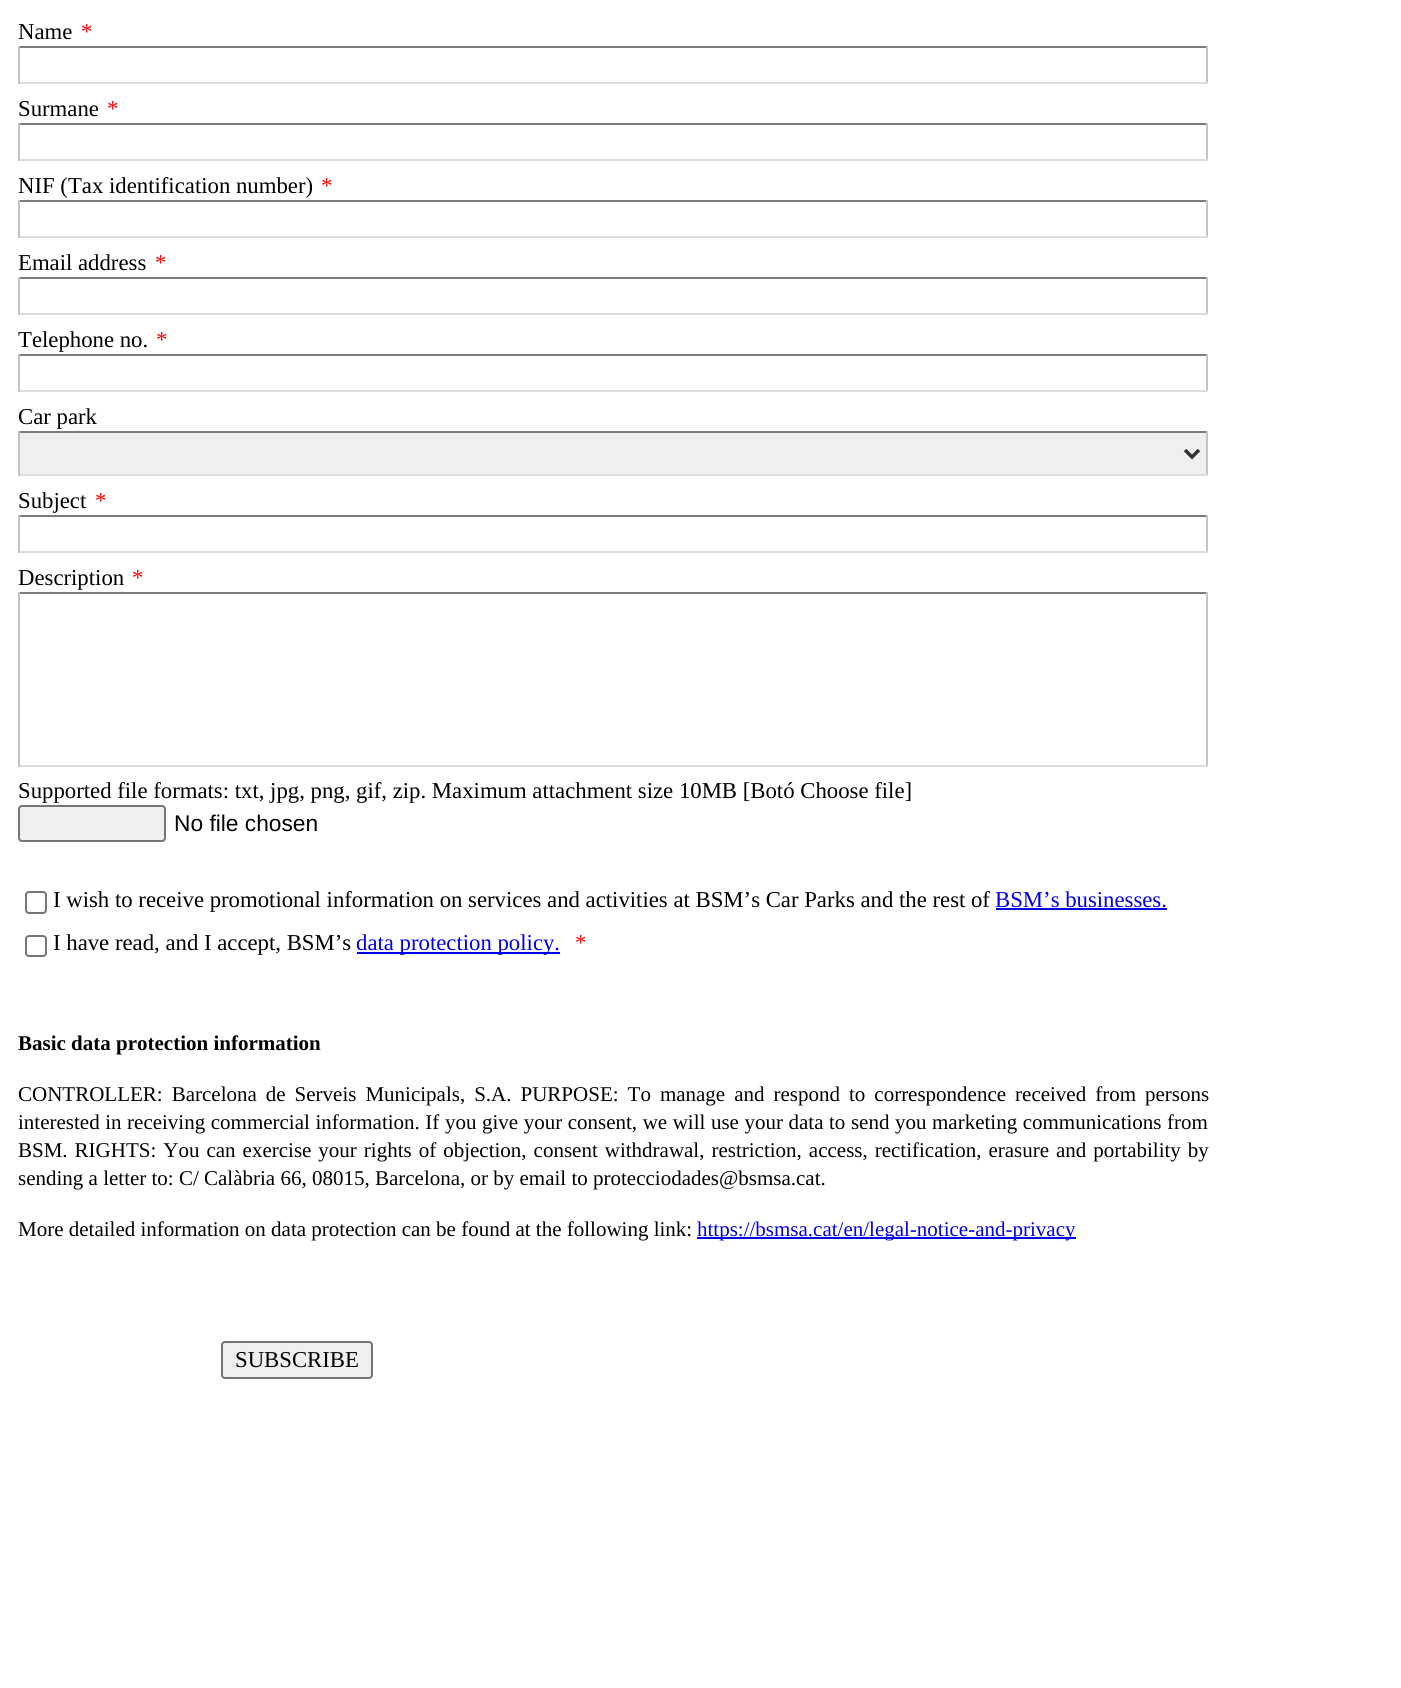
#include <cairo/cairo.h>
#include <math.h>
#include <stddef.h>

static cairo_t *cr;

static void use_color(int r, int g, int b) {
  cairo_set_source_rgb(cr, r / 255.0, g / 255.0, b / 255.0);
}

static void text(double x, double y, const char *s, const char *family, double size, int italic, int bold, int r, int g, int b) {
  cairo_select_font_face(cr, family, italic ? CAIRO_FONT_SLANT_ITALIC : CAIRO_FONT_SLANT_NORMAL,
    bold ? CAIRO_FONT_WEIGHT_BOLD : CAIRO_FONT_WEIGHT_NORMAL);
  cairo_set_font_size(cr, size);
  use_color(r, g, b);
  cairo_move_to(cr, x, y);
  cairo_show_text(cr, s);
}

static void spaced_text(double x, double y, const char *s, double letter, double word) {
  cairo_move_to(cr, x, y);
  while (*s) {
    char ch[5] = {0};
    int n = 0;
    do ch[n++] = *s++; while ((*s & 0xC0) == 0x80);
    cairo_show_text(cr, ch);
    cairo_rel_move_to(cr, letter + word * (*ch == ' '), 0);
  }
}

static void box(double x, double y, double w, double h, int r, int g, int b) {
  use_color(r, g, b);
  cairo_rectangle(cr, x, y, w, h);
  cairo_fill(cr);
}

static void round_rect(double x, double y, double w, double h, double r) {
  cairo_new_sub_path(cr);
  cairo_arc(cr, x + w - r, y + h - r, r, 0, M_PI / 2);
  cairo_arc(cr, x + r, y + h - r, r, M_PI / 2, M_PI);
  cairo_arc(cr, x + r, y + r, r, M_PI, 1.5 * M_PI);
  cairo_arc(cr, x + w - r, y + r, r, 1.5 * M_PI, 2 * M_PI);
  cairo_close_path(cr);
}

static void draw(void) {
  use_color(255, 255, 255);
  cairo_paint(cr);
  box(18, 46, 1190, 2, 124, 124, 124);
  box(1206, 46, 2, 38, 195, 195, 195);
  box(18, 82, 1190, 2, 221, 221, 221);
  box(18, 46, 2, 38, 195, 195, 195);
  box(18, 123, 1190, 2, 124, 124, 124);
  box(1206, 123, 2, 38, 195, 195, 195);
  box(18, 159, 1190, 2, 221, 221, 221);
  box(18, 123, 2, 38, 195, 195, 195);
  box(18, 200, 1190, 2, 124, 124, 124);
  box(1206, 200, 2, 38, 195, 195, 195);
  box(18, 236, 1190, 2, 221, 221, 221);
  box(18, 200, 2, 38, 195, 195, 195);
  box(18, 277, 1190, 2, 124, 124, 124);
  box(1206, 277, 2, 38, 195, 195, 195);
  box(18, 313, 1190, 2, 221, 221, 221);
  box(18, 277, 2, 38, 195, 195, 195);
  box(18, 354, 1190, 2, 124, 124, 124);
  box(1206, 354, 2, 38, 195, 195, 195);
  box(18, 390, 1190, 2, 221, 221, 221);
  box(18, 354, 2, 38, 195, 195, 195);
  box(20, 433, 1186, 41, 239, 239, 239);
  box(18, 431, 1190, 2, 124, 124, 124);
  box(1206, 431, 2, 45, 195, 195, 195);
  box(18, 474, 1190, 2, 221, 221, 221);
  box(18, 431, 2, 45, 195, 195, 195);
  cairo_new_path(cr);
  cairo_move_to(cr, 1185, 450);
  cairo_line_to(cr, 1192, 457);
  cairo_line_to(cr, 1199, 450);
  use_color(51, 51, 51);
  cairo_set_line_width(cr, 3.5);
  cairo_stroke(cr);
  box(18, 515, 1190, 2, 124, 124, 124);
  box(1206, 515, 2, 38, 195, 195, 195);
  box(18, 551, 1190, 2, 221, 221, 221);
  box(18, 515, 2, 38, 195, 195, 195);
  box(18, 592, 1190, 2, 124, 124, 124);
  box(1206, 592, 2, 175, 195, 195, 195);
  box(18, 765, 1190, 2, 221, 221, 221);
  box(18, 592, 2, 175, 195, 195, 195);
  use_color(239, 239, 239);
  round_rect(19, 806, 146, 35, 3);
  cairo_fill_preserve(cr);
  use_color(118, 118, 118);
  cairo_set_line_width(cr, 2);
  cairo_stroke(cr);
  round_rect(26, 892, 20, 21, 3);
  cairo_stroke(cr);
  box(996, 908, 171, 2, 0, 0, 238);
  round_rect(26, 936, 20, 20, 3);
  use_color(118, 118, 118);
  cairo_stroke(cr);
  box(357, 952, 203, 2, 0, 0, 238);
  box(697, 1237, 379, 2, 0, 0, 238);
  use_color(239, 239, 239);
  round_rect(222, 1342, 150, 36, 3);
  cairo_fill_preserve(cr);
  use_color(118, 118, 118);
  cairo_stroke(cr);
  text(18, 39, "Name", "Liberation Serif", 22.75, 0, 0, 0, 0, 0);
  text(81, 39, "*", "Liberation Serif", 22.75, 0, 0, 255, 0, 0);
  text(18, 116, "Surmane", "Liberation Serif", 22.75, 0, 0, 0, 0, 0);
  text(107, 116, "*", "Liberation Serif", 22.75, 0, 0, 255, 0, 0);
  text(18, 193, "NIF (Tax identification number)", "Liberation Serif", 22.75, 0, 0, 0, 0, 0);
  text(321, 193, "*", "Liberation Serif", 22.75, 0, 0, 255, 0, 0);
  text(18, 270, "Email address", "Liberation Serif", 22.75, 0, 0, 0, 0, 0);
  text(155, 270, "*", "Liberation Serif", 22.75, 0, 0, 255, 0, 0);
  text(18, 347, "Telephone no.", "Liberation Serif", 22.75, 0, 0, 0, 0, 0);
  text(156, 347, "*", "Liberation Serif", 22.75, 0, 0, 255, 0, 0);
  text(18, 424, "Car park", "Liberation Serif", 22.75, 0, 0, 0, 0, 0);
  text(18, 508, "Subject", "Liberation Serif", 22.75, 0, 0, 0, 0, 0);
  text(95, 508, "*", "Liberation Serif", 22.75, 0, 0, 255, 0, 0);
  text(18, 585, "Description", "Liberation Serif", 22.75, 0, 0, 0, 0, 0);
  text(132, 585, "*", "Liberation Serif", 22.75, 0, 0, 255, 0, 0);
  text(18, 798, "Supported file formats: txt, jpg, png, gif, zip. Maximum attachment size 10MB [Botó Choose file]", "Liberation Serif", 22.75, 0, 0, 0, 0, 0);
  text(174, 831, "No file chosen", "Liberation Sans", 22.75, 0, 0, 0, 0, 0);
  text(53, 907, "I wish to receive promotional information on services and activities at BSM’s Car Parks and the rest of", "Liberation Serif", 22.75, 0, 0, 0, 0, 0);
  text(995, 907, "BSM’s businesses.", "Liberation Serif", 22.75, 0, 0, 0, 0, 238);
  text(53, 950, "I have read, and I accept, BSM’s", "Liberation Serif", 22.75, 0, 0, 0, 0, 0);
  text(356, 950, "data protection policy.", "Liberation Serif", 22.75, 0, 0, 0, 0, 238);
  text(575, 950, "*", "Liberation Serif", 22.75, 0, 0, 255, 0, 0);
  text(18, 1050, "Basic data protection information", "Liberation Serif", 21, 0, 1, 0, 0, 0);
  cairo_select_font_face(cr, "Liberation Serif", CAIRO_FONT_SLANT_NORMAL, CAIRO_FONT_WEIGHT_NORMAL);
  spaced_text(18, 1101, "CONTROLLER: Barcelona de Serveis Municipals, S.A. PURPOSE: To manage and respond to correspondence received from persons", 0, 3.75);
  spaced_text(18, 1129, "interested in receiving commercial information. If you give your consent, we will use your data to send you marketing communications from", 0, 0.3);
  spaced_text(18, 1157, "BSM. RIGHTS: You can exercise your rights of objection, consent withdrawal, restriction, access, rectification, erasure and portability by", 0, 1.75);
  text(18, 1185, "sending a letter to: C/ Calàbria 66, 08015, Barcelona, or by email to protecciodades@bsmsa.cat.", "Liberation Serif", 21, 0, 0, 0, 0, 0);
  text(18, 1236, "More detailed information on data protection can be found at the following link:", "Liberation Serif", 21, 0, 0, 0, 0, 0);
  text(697, 1236, "https://bsmsa.cat/en/legal-notice-and-privacy", "Liberation Serif", 21, 0, 0, 0, 0, 238);
  text(235, 1367, "SUBSCRIBE", "Liberation Serif", 22.75, 0, 0, 0, 0, 0);
}

int main(void) {
  cairo_surface_t *surface = cairo_image_surface_create(CAIRO_FORMAT_RGB24, 1401, 1688);
  cr = cairo_create(surface);
  cairo_font_options_t *options = cairo_font_options_create();
  cairo_font_options_set_hint_metrics(options, CAIRO_HINT_METRICS_OFF);
  cairo_font_options_set_hint_style(options, CAIRO_HINT_STYLE_NONE);
  cairo_set_font_options(cr, options);
  cairo_set_miter_limit(cr, 4);
  draw();
  cairo_surface_write_to_png(surface, "out.png");
  cairo_font_options_destroy(options);
  cairo_destroy(cr);
  cairo_surface_destroy(surface);
  return 0;
}
